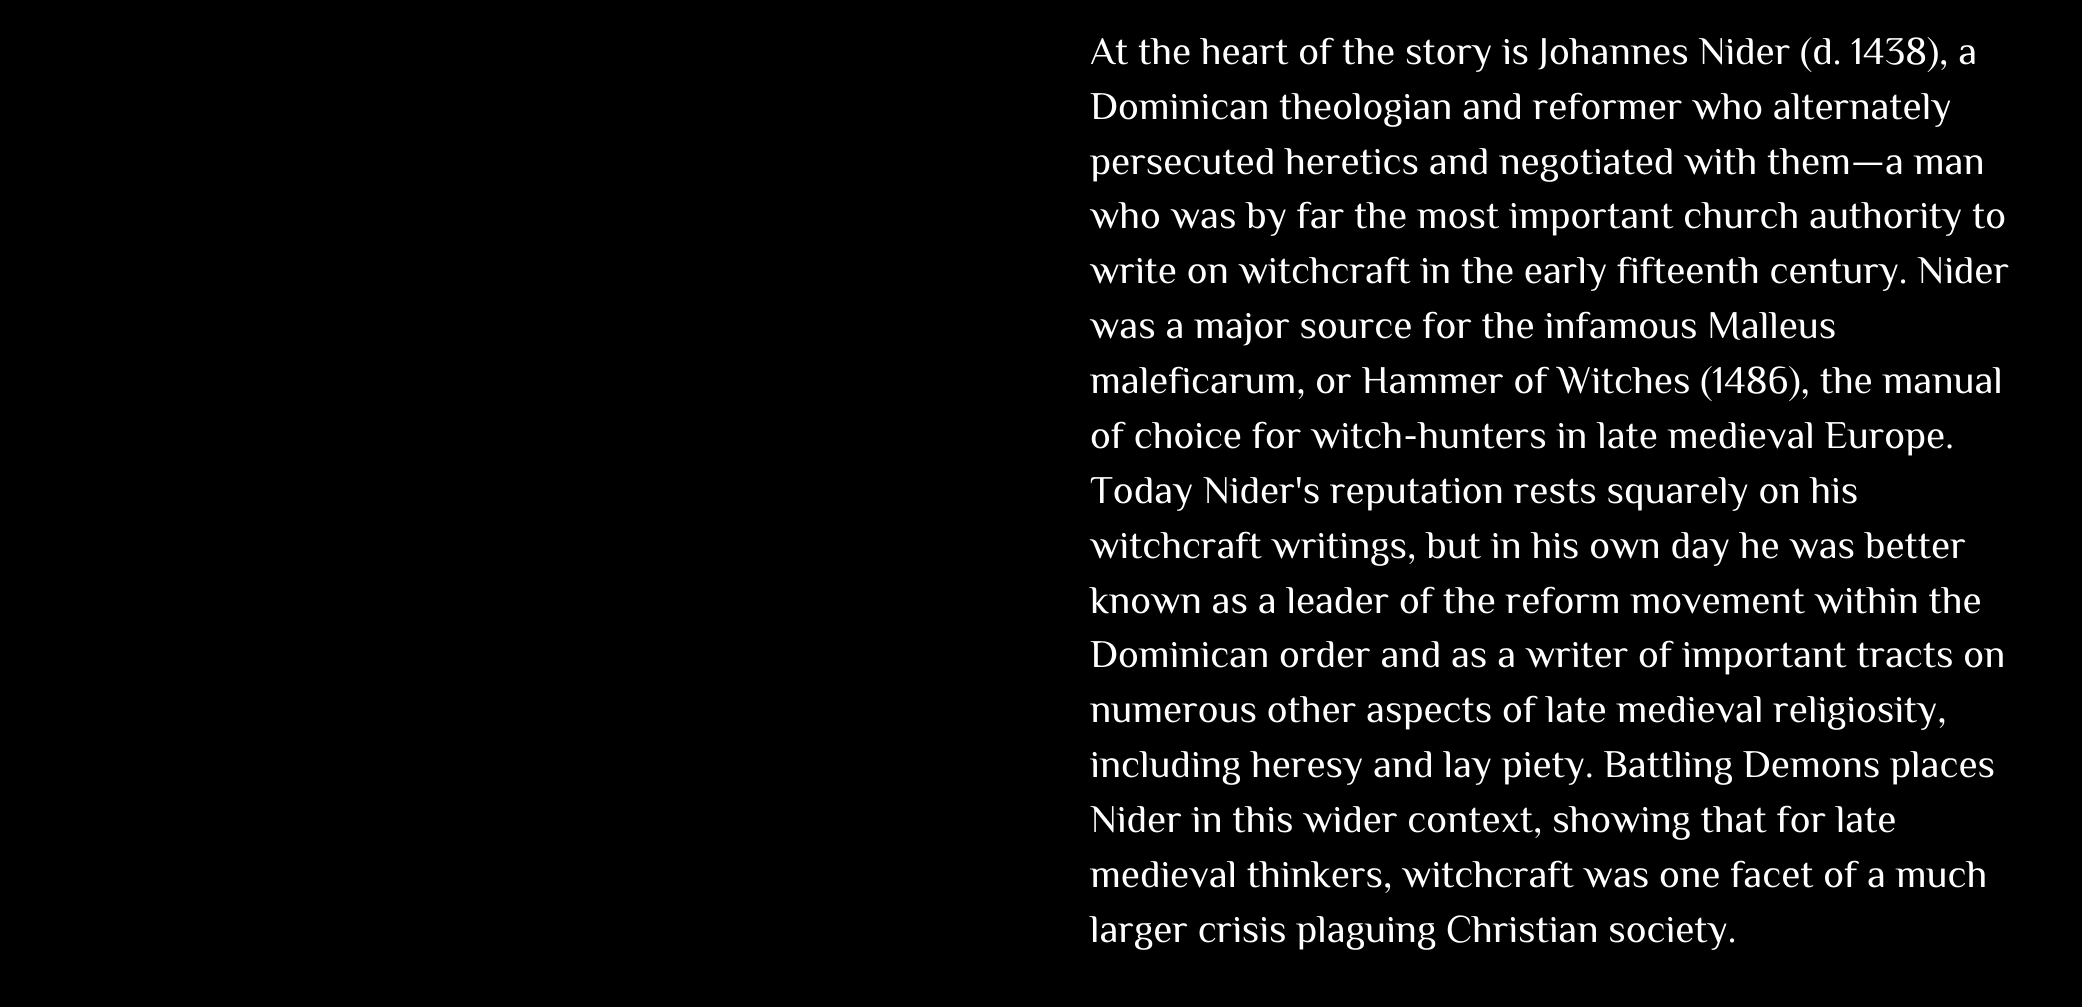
#include <cairo/cairo.h>
#include <math.h>
#include <stddef.h>

static cairo_t *cr;

static void use_color(int r, int g, int b) {
  cairo_set_source_rgb(cr, r / 255.0, g / 255.0, b / 255.0);
}

static void text(double x, double y, const char *s, const char *family, double size, int italic, int bold, int r, int g, int b) {
  cairo_select_font_face(cr, family, italic ? CAIRO_FONT_SLANT_ITALIC : CAIRO_FONT_SLANT_NORMAL,
    bold ? CAIRO_FONT_WEIGHT_BOLD : CAIRO_FONT_WEIGHT_NORMAL);
  cairo_set_font_size(cr, size);
  use_color(r, g, b);
  cairo_move_to(cr, x, y);
  cairo_show_text(cr, s);
}

static void draw(void) {
  use_color(0, 0, 0);
  cairo_paint(cr);
  text(1090, 64, "At the heart of the story is Johannes Nider (d. 1438), a", "Philosopher", 39.2, 0, 0, 255, 255, 255);
  text(1090, 119, "Dominican theologian and reformer who alternately", "Philosopher", 39.2, 0, 0, 255, 255, 255);
  text(1090, 174, "persecuted heretics and negotiated with them—a man", "Philosopher", 39.2, 0, 0, 255, 255, 255);
  text(1090, 228, "who was by far the most important church authority to", "Philosopher", 39.2, 0, 0, 255, 255, 255);
  text(1090, 283, "write on witchcraft in the early fifteenth century. Nider", "Philosopher", 39.2, 0, 0, 255, 255, 255);
  text(1090, 338, "was a major source for the infamous Malleus", "Philosopher", 39.2, 0, 0, 255, 255, 255);
  text(1090, 393, "maleficarum, or Hammer of Witches (1486), the manual", "Philosopher", 39.2, 0, 0, 255, 255, 255);
  text(1090, 448, "of choice for witch-hunters in late medieval Europe.", "Philosopher", 39.2, 0, 0, 255, 255, 255);
  text(1090, 503, "Today Nider's reputation rests squarely on his", "Philosopher", 39.2, 0, 0, 255, 255, 255);
  text(1090, 558, "witchcraft writings, but in his own day he was better", "Philosopher", 39.2, 0, 0, 255, 255, 255);
  text(1090, 613, "known as a leader of the reform movement within the", "Philosopher", 39.2, 0, 0, 255, 255, 255);
  text(1090, 667, "Dominican order and as a writer of important tracts on", "Philosopher", 39.2, 0, 0, 255, 255, 255);
  text(1090, 722, "numerous other aspects of late medieval religiosity,", "Philosopher", 39.2, 0, 0, 255, 255, 255);
  text(1090, 777, "including heresy and lay piety. Battling Demons places", "Philosopher", 39.2, 0, 0, 255, 255, 255);
  text(1090, 832, "Nider in this wider context, showing that for late", "Philosopher", 39.2, 0, 0, 255, 255, 255);
  text(1090, 887, "medieval thinkers, witchcraft was one facet of a much", "Philosopher", 39.2, 0, 0, 255, 255, 255);
  text(1090, 942, "larger crisis plaguing Christian society.", "Philosopher", 39.2, 0, 0, 255, 255, 255);
}

int main(void) {
  cairo_surface_t *surface = cairo_image_surface_create(CAIRO_FORMAT_RGB24, 2082, 1007);
  cr = cairo_create(surface);
  cairo_font_options_t *options = cairo_font_options_create();
  cairo_font_options_set_hint_metrics(options, CAIRO_HINT_METRICS_OFF);
  cairo_font_options_set_hint_style(options, CAIRO_HINT_STYLE_NONE);
  cairo_set_font_options(cr, options);
  cairo_set_miter_limit(cr, 4);
  draw();
  cairo_surface_write_to_png(surface, "out.png");
  cairo_font_options_destroy(options);
  cairo_destroy(cr);
  cairo_surface_destroy(surface);
  return 0;
}
